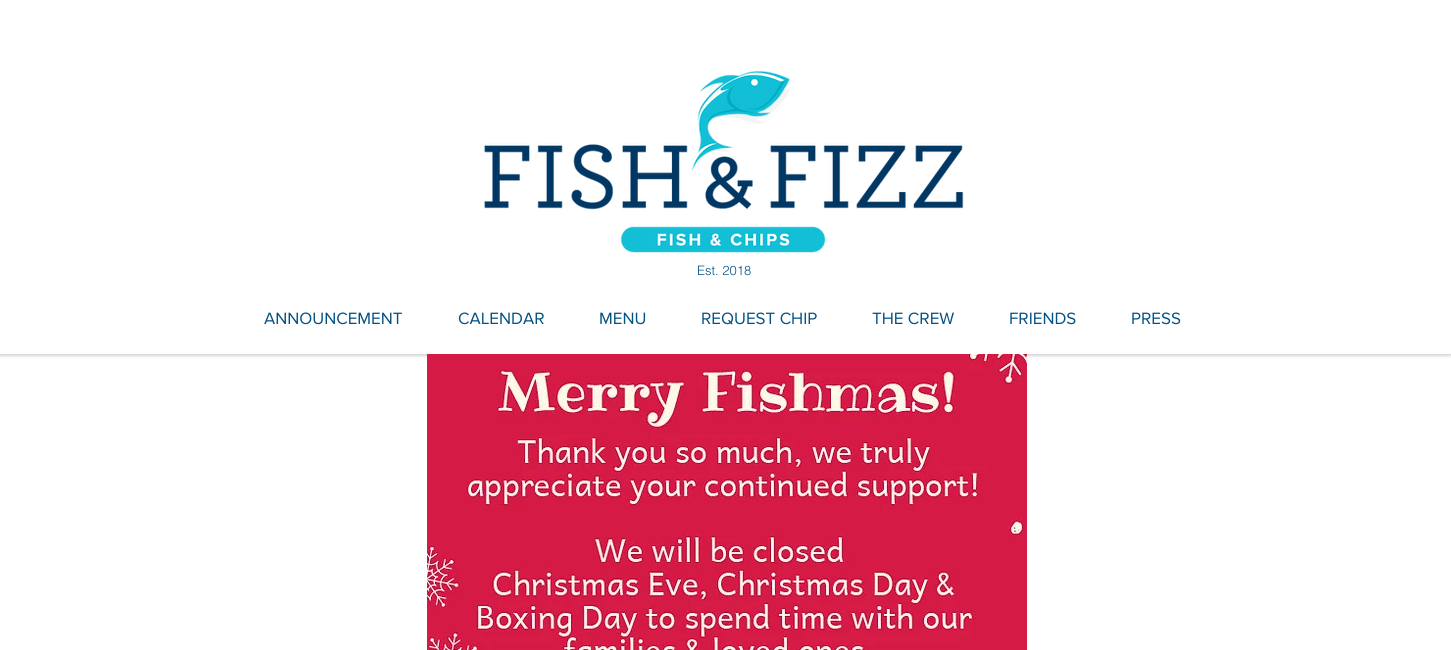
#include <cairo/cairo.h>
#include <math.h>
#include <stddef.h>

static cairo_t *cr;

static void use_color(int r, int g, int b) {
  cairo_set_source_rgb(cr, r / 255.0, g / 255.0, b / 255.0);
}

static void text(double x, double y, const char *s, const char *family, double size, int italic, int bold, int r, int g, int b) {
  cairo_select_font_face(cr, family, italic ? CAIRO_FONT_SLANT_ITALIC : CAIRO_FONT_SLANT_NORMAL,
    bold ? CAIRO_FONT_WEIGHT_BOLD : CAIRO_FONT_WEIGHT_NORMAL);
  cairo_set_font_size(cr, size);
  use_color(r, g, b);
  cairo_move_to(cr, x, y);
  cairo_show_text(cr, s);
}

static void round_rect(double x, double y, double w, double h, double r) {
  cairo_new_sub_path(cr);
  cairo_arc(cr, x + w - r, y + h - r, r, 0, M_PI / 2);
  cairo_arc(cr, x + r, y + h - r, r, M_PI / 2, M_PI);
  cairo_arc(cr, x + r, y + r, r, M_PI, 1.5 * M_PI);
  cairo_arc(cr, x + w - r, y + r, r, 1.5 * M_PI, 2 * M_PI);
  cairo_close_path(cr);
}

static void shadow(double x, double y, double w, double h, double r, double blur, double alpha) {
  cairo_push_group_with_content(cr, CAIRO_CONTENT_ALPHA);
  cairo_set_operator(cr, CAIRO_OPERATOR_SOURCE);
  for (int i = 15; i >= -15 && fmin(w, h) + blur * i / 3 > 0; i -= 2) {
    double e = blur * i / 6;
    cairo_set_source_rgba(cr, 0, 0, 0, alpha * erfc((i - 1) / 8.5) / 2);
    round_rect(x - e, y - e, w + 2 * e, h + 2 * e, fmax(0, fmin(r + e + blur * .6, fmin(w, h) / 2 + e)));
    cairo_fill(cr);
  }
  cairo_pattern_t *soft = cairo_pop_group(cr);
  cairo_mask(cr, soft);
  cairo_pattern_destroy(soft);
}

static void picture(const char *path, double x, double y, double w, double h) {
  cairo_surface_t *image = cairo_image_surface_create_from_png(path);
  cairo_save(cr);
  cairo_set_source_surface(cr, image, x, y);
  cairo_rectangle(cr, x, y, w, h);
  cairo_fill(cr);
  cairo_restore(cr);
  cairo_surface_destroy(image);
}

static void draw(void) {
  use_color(255, 255, 255);
  cairo_paint(cr);
  cairo_save(cr);
  cairo_rectangle(cr, 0, 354, 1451, 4);
  cairo_clip(cr);
  use_color(0, 0, 0);
  shadow(0, 0, 1451, 354, 0, 2.5, 0.36);
  cairo_restore(cr);
  picture("img_01.png", 484, 71, 480, 182);
  picture("img_02.png", 427, 354, 600, 296);
  text(697, 275, "Est. 2018", "helvetica Light", 13, 0, 0, 4, 81, 132);
  text(264, 324, "ANNOUNCEMENT", "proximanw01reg", 17, 0, 0, 4, 81, 132);
  text(458, 324, "CALENDAR", "proximanw01reg", 17, 0, 0, 4, 81, 132);
  text(599, 324, "MENU", "proximanw01reg", 17, 0, 0, 4, 81, 132);
  text(701, 324, "REQUEST CHIP", "proximanw01reg", 17, 0, 0, 4, 81, 132);
  text(872, 324, "THE CREW", "proximanw01reg", 17, 0, 0, 4, 81, 132);
  text(1009, 324, "FRIENDS", "proximanw01reg", 17, 0, 0, 4, 81, 132);
  text(1131, 324, "PRESS", "proximanw01reg", 17, 0, 0, 4, 81, 132);
}

int main(void) {
  cairo_surface_t *surface = cairo_image_surface_create(CAIRO_FORMAT_RGB24, 1451, 650);
  cr = cairo_create(surface);
  cairo_font_options_t *options = cairo_font_options_create();
  cairo_font_options_set_hint_metrics(options, CAIRO_HINT_METRICS_OFF);
  cairo_font_options_set_hint_style(options, CAIRO_HINT_STYLE_NONE);
  cairo_set_font_options(cr, options);
  cairo_set_miter_limit(cr, 4);
  draw();
  cairo_surface_write_to_png(surface, "out.png");
  cairo_font_options_destroy(options);
  cairo_destroy(cr);
  cairo_surface_destroy(surface);
  return 0;
}
